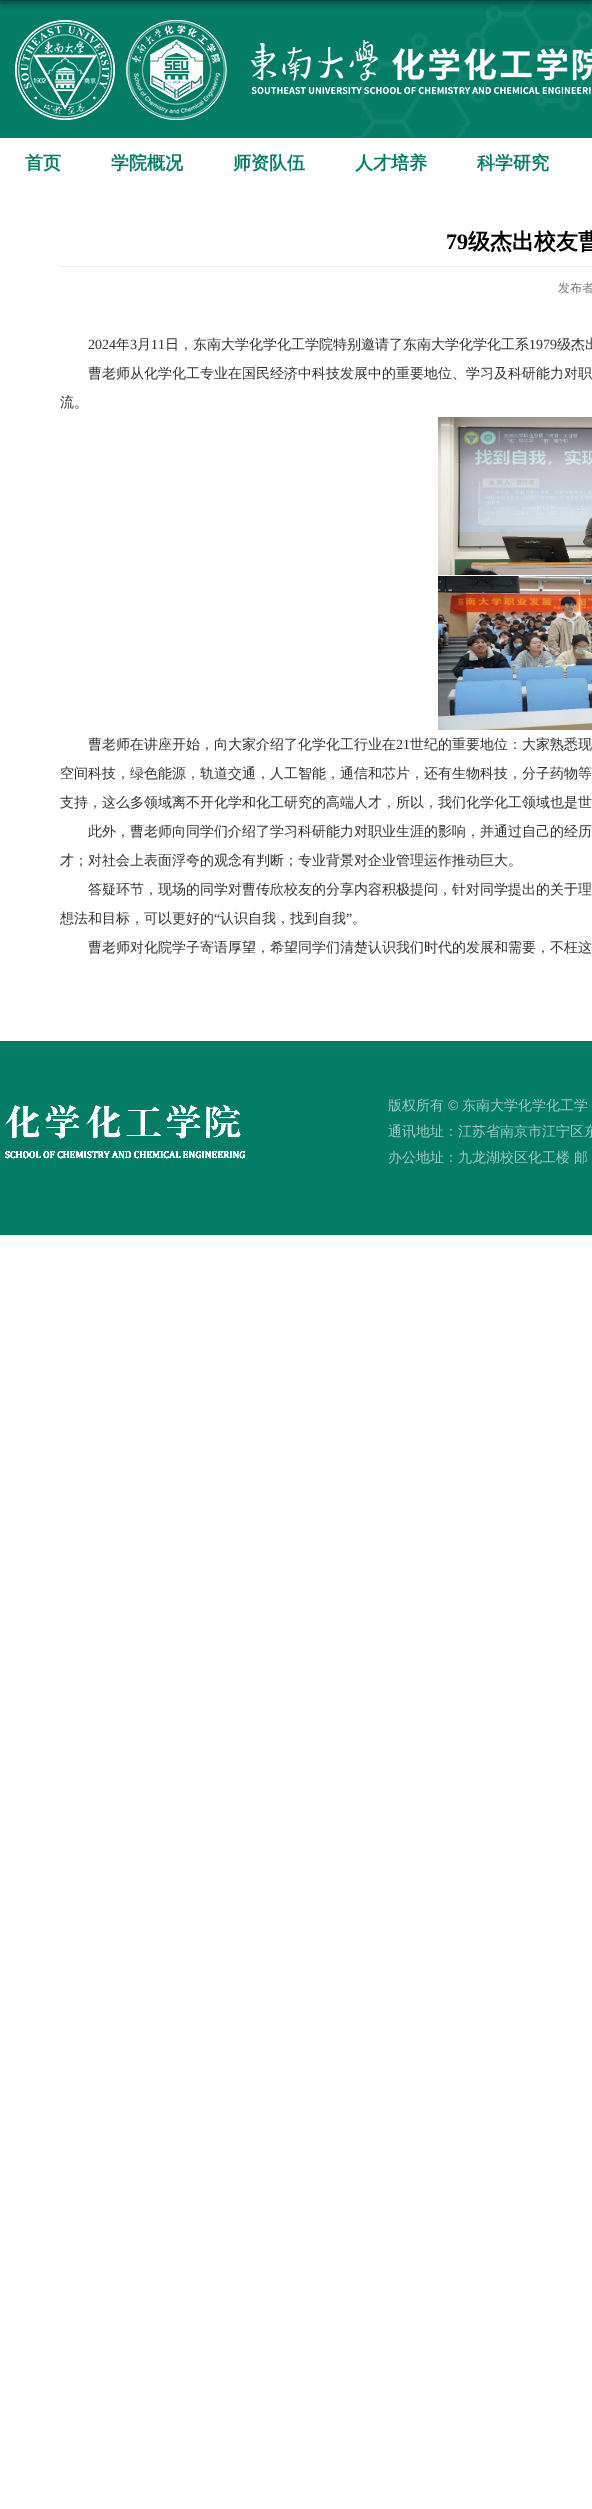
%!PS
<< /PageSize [592 2509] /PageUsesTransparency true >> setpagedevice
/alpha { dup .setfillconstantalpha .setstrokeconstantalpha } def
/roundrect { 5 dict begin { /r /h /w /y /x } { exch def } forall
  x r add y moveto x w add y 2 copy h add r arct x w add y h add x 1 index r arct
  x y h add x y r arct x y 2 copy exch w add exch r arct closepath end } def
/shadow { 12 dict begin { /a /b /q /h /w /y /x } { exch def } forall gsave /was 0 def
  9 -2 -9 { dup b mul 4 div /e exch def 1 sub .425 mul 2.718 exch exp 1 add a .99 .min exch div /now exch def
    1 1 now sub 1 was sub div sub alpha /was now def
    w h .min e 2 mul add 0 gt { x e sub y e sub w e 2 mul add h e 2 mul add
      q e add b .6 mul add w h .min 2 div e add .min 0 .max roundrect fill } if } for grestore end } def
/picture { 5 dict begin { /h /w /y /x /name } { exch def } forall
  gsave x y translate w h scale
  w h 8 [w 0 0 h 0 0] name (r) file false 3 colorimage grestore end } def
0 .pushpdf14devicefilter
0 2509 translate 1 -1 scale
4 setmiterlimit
1 setgray
0 0 592 2509 rectfill
0.02 0.486 0.4 setrgbcolor
0 0 592 138 rectfill
(img1.rgb) 345 0 247 138 picture
(img2.rgb) 15 20 577 100 picture
0 setgray
0 -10 592 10 0 5 0.8 shadow
/WenQuanYiZenHei-Bold [18 0 0 -18 0 0] selectfont
0.02 0.486 0.4 setrgbcolor
25 169 moveto (首页) show
111 169 moveto (学院概况) show
233 169 moveto (师资队伍) show
355 169 moveto (人才培养) show
477 169 moveto (科学研究) show
/LiberationSerif-Bold [22 0 0 -22 0 0] selectfont
0 setgray
446 249 moveto (79) show
/WenQuanYiZenHei-Bold [22 0 0 -22 0 0] selectfont
468 249 moveto (级杰出校友曹) show
0.925 setgray
60 266 532 1 rectfill
/WenQuanYiZenHei-Medium [12 0 0 -12 0 0] selectfont
0.471 setgray
558 292 moveto (发布者) show
/LiberationSerif-Regular [14 0 0 -14 0 0] selectfont
0.2 setgray
88 349 moveto (2024) show
/WenQuanYiZenHei-Medium [14 0 0 -14 0 0] selectfont
116 349 moveto (年) show
/LiberationSerif-Regular [14 0 0 -14 0 0] selectfont
130 349 moveto (3) show
/WenQuanYiZenHei-Medium [14 0 0 -14 0 0] selectfont
137 349 moveto (月) show
/LiberationSerif-Regular [14 0 0 -14 0 0] selectfont
151 349 moveto (11) show
/WenQuanYiZenHei-Medium [14 0 0 -14 0 0] selectfont
165 349 moveto (日，东南大学化学化工学院特别邀请了东南大学化学化工系) show
/LiberationSerif-Regular [14 0 0 -14 0 0] selectfont
529 349 moveto (1979) show
/WenQuanYiZenHei-Medium [14 0 0 -14 0 0] selectfont
557 349 moveto (级杰出) show
88 378 moveto (曹老师从化学化工专业在国民经济中科技发展中的重要地位、学习及科研能力对职) show
60 407 moveto (流。) show
(img3.rgb) 438 417 154 158 picture
(img4.rgb) 438 576 154 154 picture
88 749 moveto (曹老师在讲座开始，向大家介绍了化学化工行业在) show
/LiberationSerif-Regular [14 0 0 -14 0 0] selectfont
396 749 moveto (21) show
/WenQuanYiZenHei-Medium [14 0 0 -14 0 0] selectfont
410 749 moveto (世纪的重要地位：大家熟悉现) show
60 778 moveto (空间科技，绿色能源，轨道交通，人工智能，通信和芯片，还有生物科技，分子药物等) show
60 807 moveto (支持，这么多领域离不开化学和化工研究的高端人才，所以，我们化学化工领域也是世) show
88 836 moveto (此外，曹老师向同学们介绍了学习科研能力对职业生涯的影响，并通过自己的经历) show
60 865 moveto (才；对社会上表面浮夸的观念有判断；专业背景对企业管理运作推动巨大。) show
88 894 moveto (答疑环节，现场的同学对曹传欣校友的分享内容积极提问，针对同学提出的关于理) show
60 923 moveto (想法和目标，可以更好的) show
/LiberationSerif-Regular [14 0 0 -14 0 0] selectfont
214 923 moveto (“) show
/WenQuanYiZenHei-Medium [14 0 0 -14 0 0] selectfont
220 923 moveto (认识自我，找到自我) show
/LiberationSerif-Regular [14 0 0 -14 0 0] selectfont
346 923 moveto (”) show
/WenQuanYiZenHei-Medium [14 0 0 -14 0 0] selectfont
352 923 moveto (。) show
88 952 moveto (曹老师对化院学子寄语厚望，希望同学们清楚认识我们时代的发展和需要，不枉这) show
0.02 0.486 0.4 setrgbcolor
0 1041 592 194 rectfill
(img5.rgb) 5 1105 240 54 picture
0.608 0.796 0.761 setrgbcolor
388 1110 moveto (版权所有) show
/LiberationSans-Regular [14 0 0 -14 0 0] selectfont
448 1110 moveto (©) show
/WenQuanYiZenHei-Medium [14 0 0 -14 0 0] selectfont
462 1110 moveto (东南大学化学化工学) show
388 1136 moveto (通讯地址：江苏省南京市江宁区东) show
388 1162 moveto (办公地址：九龙湖校区化工楼) show
574 1162 moveto (邮) show
.poppdf14devicefilter showpage
